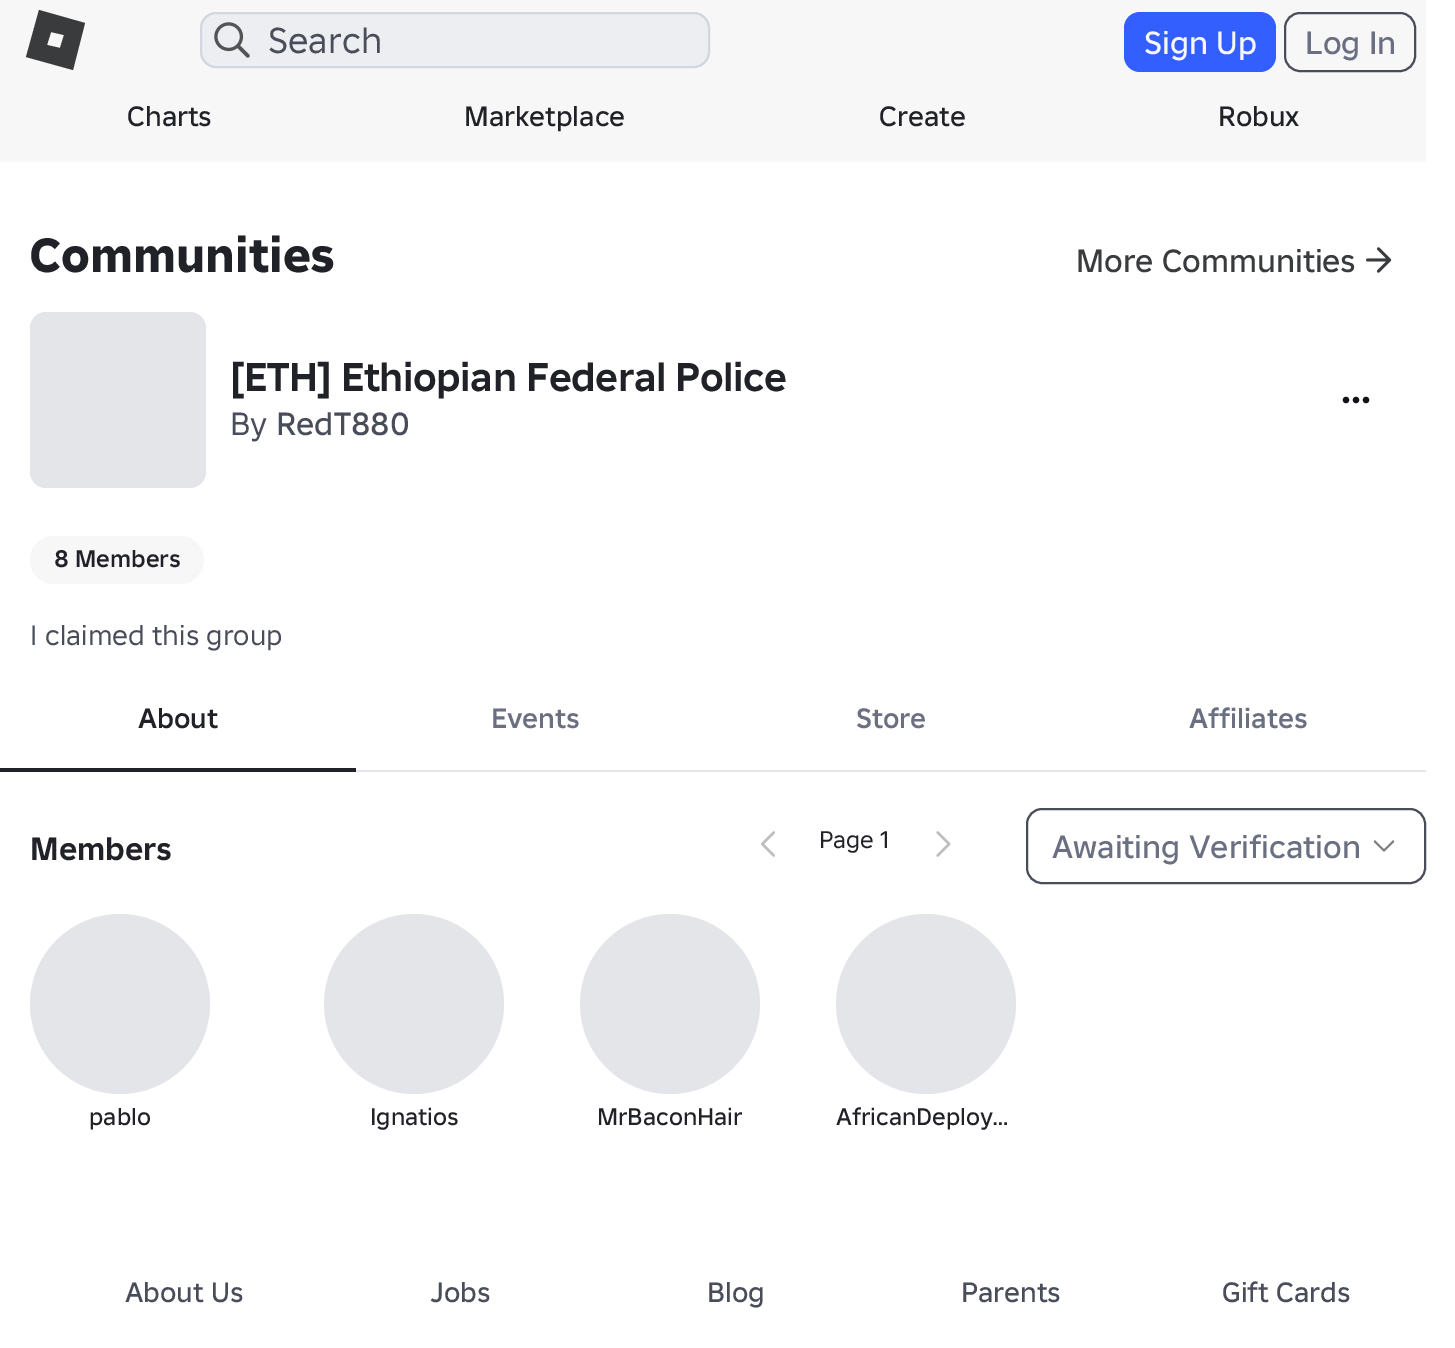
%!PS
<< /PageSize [1455 1348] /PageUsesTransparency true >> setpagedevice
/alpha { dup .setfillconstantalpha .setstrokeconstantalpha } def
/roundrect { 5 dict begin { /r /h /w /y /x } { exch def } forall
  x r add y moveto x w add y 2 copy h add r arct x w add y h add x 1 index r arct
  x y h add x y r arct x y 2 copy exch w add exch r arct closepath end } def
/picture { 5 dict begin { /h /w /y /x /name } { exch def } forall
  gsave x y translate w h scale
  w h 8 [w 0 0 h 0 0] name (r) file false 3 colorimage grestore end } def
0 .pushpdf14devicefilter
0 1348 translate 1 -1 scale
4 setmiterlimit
1 setgray
0 0 1455 1348 rectfill
0.969 0.969 0.973 setrgbcolor
0 0 1426 162 rectfill
0.224 0.231 0.239 setrgbcolor
newpath 39 10 moveto 26 57 lineto 73 70 lineto 85 23 lineto closepath 60 48 moveto 47 45 lineto 51 32 lineto 64 35 lineto closepath fill
1 setgray
200 12 510 56 16 roundrect fill
0.08 alpha
0.106 0.145 0.294 setrgbcolor
200 12 510 56 16 roundrect fill
0.12 alpha
2 setlinewidth
201 13 508 54 15 roundrect stroke
1 alpha
(img1.rgb) 214 22 36 36 picture
/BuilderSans-Regular [36 0 0 -36 0 0] selectfont
0.286 0.302 0.353 setrgbcolor
268 53 moveto (Search) show
0.2 0.373 1 setrgbcolor
1124 12 152 60 16 roundrect fill
/BuilderSans-Medium [32 0 0 -32 0 0] selectfont
0.969 0.969 0.973 setrgbcolor
1144 54 moveto (Sign Up) show
0.286 0.302 0.353 setrgbcolor
1285 13 130 58 15 roundrect stroke
0.416 0.435 0.506 setrgbcolor
1305 54 moveto (Log In) show
/BuilderSans-Medium [28 0 0 -28 0 0] selectfont
0.125 0.133 0.153 setrgbcolor
127 126 moveto (Charts) show
464 126 moveto (Marketplace) show
879 126 moveto (Create) show
1218 126 moveto (Robux) show
/BuilderSans-ExtraBold [48 0 0 -48 0 0] selectfont
30 272 moveto (Communities) show
/BuilderSans-Medium [32 0 0 -32 0 0] selectfont
0.224 0.231 0.239 setrgbcolor
1076 272 moveto (More Communities) show
(img2.rgb) 1366 247 26 26 picture
0.894 0.898 0.914 setrgbcolor
30 312 176 176 16 roundrect fill
/BuilderSans-Bold [40 0 0 -40 0 0] selectfont
0.125 0.133 0.153 setrgbcolor
230 391 moveto -0.4 0 ([ETH] Ethiopian Federal Police) ashow
/BuilderSans-Regular [32 0 0 -32 0 0] selectfont
0.286 0.302 0.353 setrgbcolor
230 435 moveto (By) show
/BuilderSans-Medium [32 0 0 -32 0 0] selectfont
276 435 moveto (RedT880) show
(img3.rgb) 1342 396 28 8 picture
0.969 0.969 0.973 setrgbcolor
30 536 174 48 24 roundrect fill
/BuilderSans-SemiBold [24 0 0 -24 0 0] selectfont
0.125 0.133 0.153 setrgbcolor
54 567 moveto (8 Members) show
/BuilderSans-Regular [28 0 0 -28 0 0] selectfont
0.286 0.302 0.353 setrgbcolor
30 645 moveto (I claimed this group) show
0.125 0.133 0.153 setrgbcolor
0 768 356 4 rectfill
/BuilderSans-SemiBold [28 0 0 -28 0 0] selectfont
138 728 moveto (About) show
0.894 0.898 0.914 setrgbcolor
356 770 1070 2 rectfill
0.416 0.435 0.506 setrgbcolor
491 728 moveto (Events) show
856 728 moveto (Store) show
1189 728 moveto (Affiliates) show
/BuilderSans-Bold [32 0 0 -32 0 0] selectfont
0.125 0.133 0.153 setrgbcolor
30 860 moveto (Members) show
(img4.rgb) 761 831 14 26 picture
/BuilderSans-Regular [24 0 0 -24 0 0] selectfont
819 848 moveto (Page 1) show
(img5.rgb) 936 831 15 26 picture
0.286 0.302 0.353 setrgbcolor
1027 809 398 74 15 roundrect stroke
/BuilderSans-Medium [32 0 0 -32 0 0] selectfont
0.416 0.435 0.506 setrgbcolor
1052 858 moveto (Awaiting Verification) show
(img6.rgb) 1373 840 22 12 picture
0.894 0.898 0.914 setrgbcolor
newpath 120 1004 90 0 360 arc closepath fill
/BuilderSans-Medium [24 0 0 -24 0 0] selectfont
0.125 0.133 0.153 setrgbcolor
89 1125 moveto (pablo) show
0.894 0.898 0.914 setrgbcolor
newpath 414 1004 90 0 360 arc closepath fill
0.125 0.133 0.153 setrgbcolor
370 1125 moveto (Ignatios) show
0.894 0.898 0.914 setrgbcolor
newpath 670 1004 90 0 360 arc closepath fill
gsave
598 1100 144 34 rectclip
0.125 0.133 0.153 setrgbcolor
597 1125 moveto (MrBaconHair) show
grestore
newpath 926 1004 90 0 360 arc closepath fill
0.125 0.133 0.153 setrgbcolor
836 1125 moveto (AfricanDeploy…) show
/BuilderSans-Medium [28 0 0 -28 0 0] selectfont
0.286 0.302 0.353 setrgbcolor
125 1302 moveto (About Us) show
430 1302 moveto (Jobs) show
707 1302 moveto (Blog) show
961 1302 moveto (Parents) show
1222 1302 moveto (Gift Cards) show
.poppdf14devicefilter showpage
